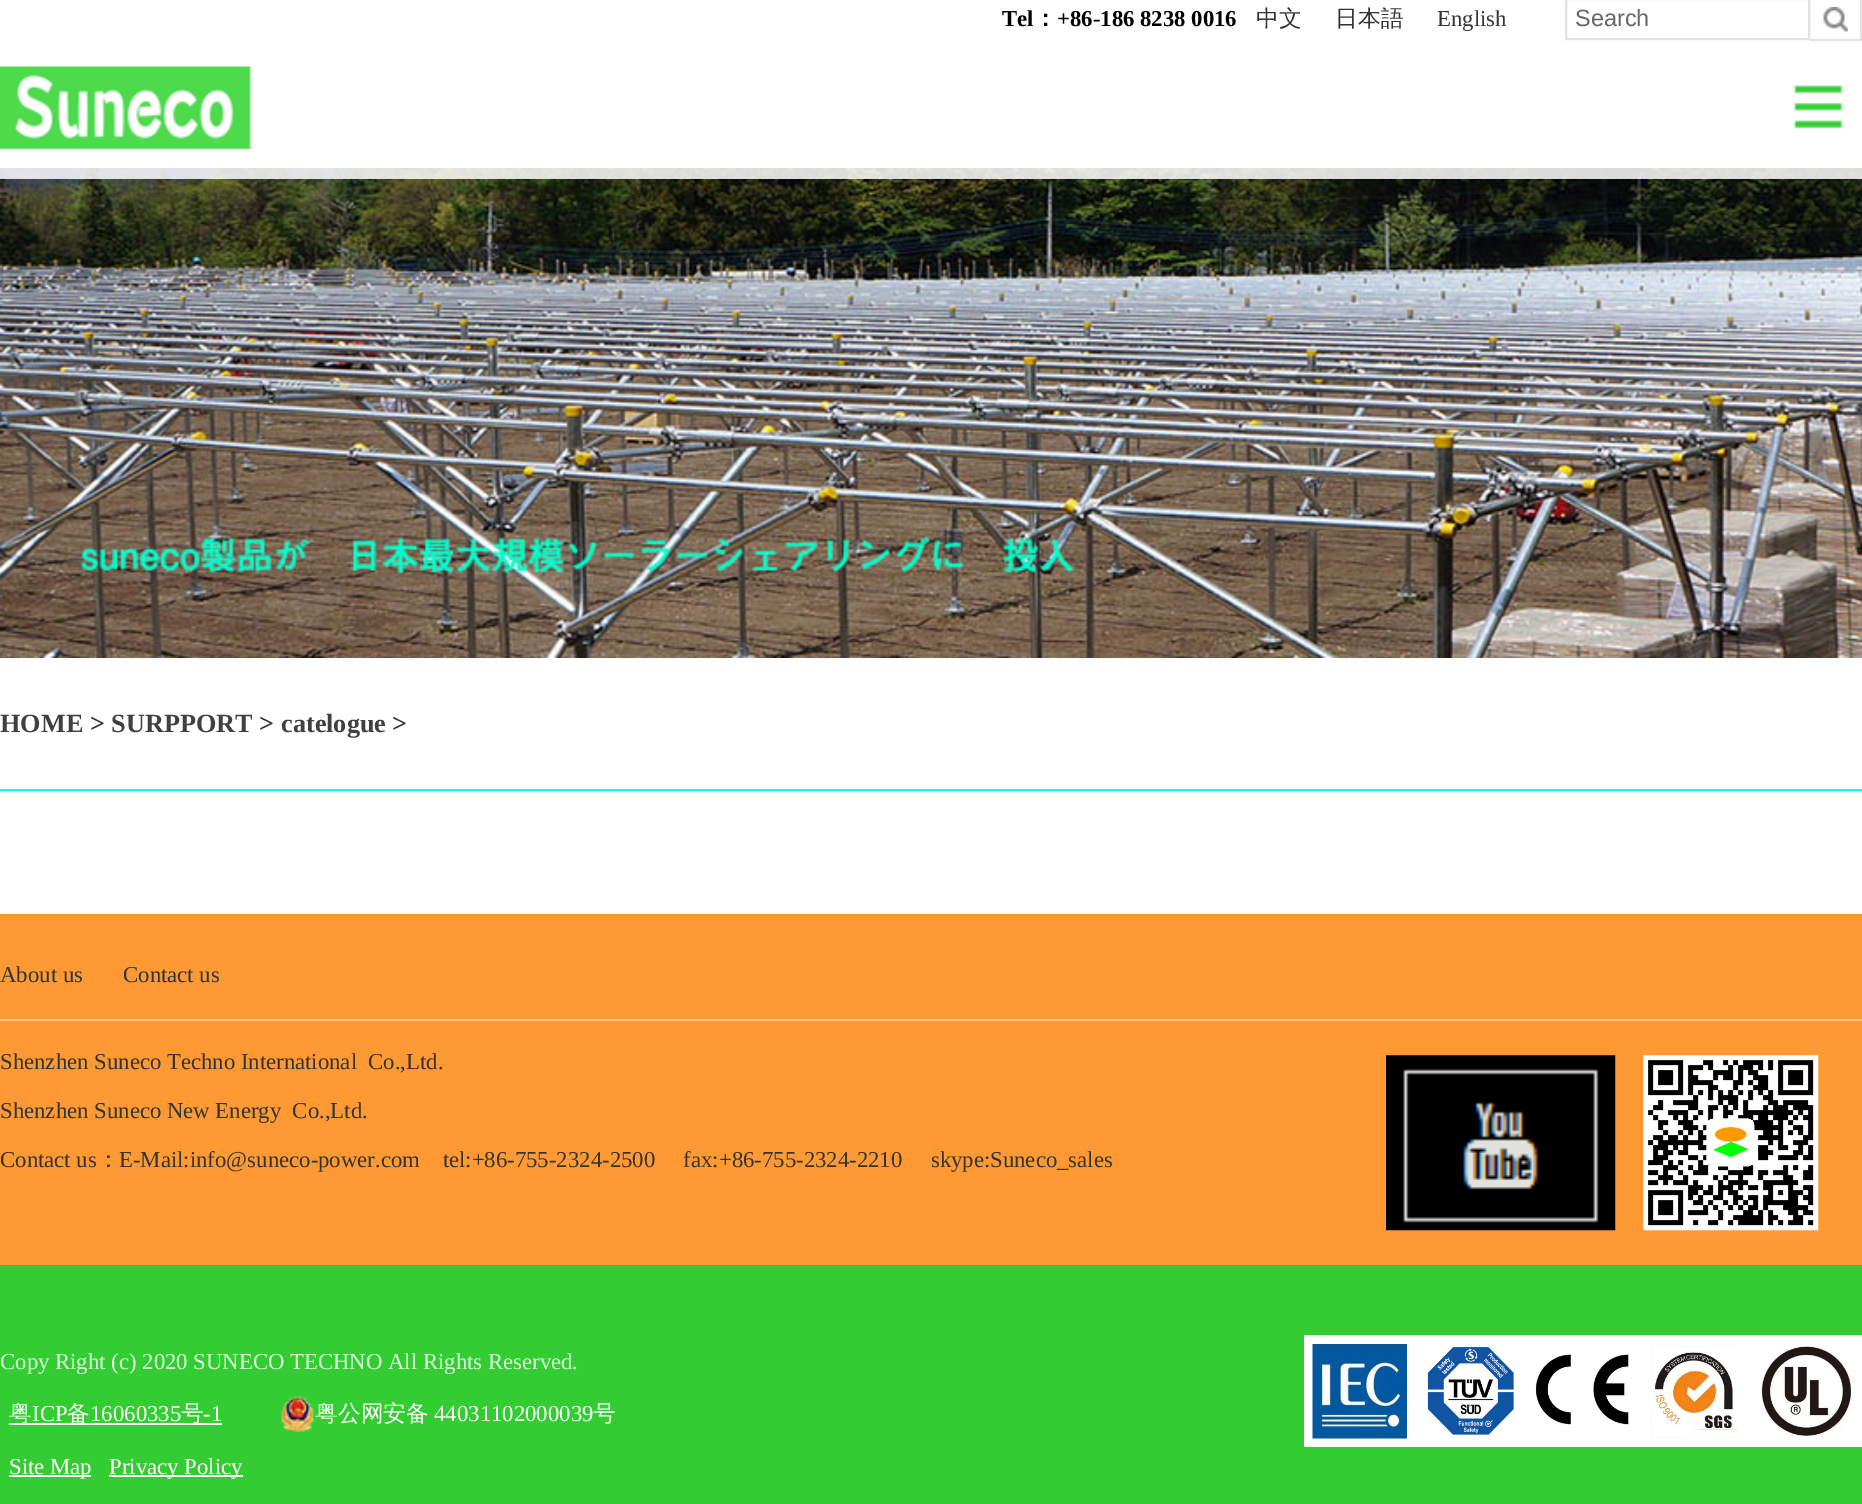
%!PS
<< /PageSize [1862 1504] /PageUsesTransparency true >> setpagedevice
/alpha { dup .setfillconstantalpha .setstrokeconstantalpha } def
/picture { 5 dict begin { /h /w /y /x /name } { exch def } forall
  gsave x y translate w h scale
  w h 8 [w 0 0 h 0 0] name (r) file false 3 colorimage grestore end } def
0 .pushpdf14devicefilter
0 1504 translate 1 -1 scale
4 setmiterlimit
1 setgray
0 0 1862 1504 rectfill
(img4.rgb) 0 168 1862 490 picture
0.85 alpha
0 168 1862 11 rectfill
/LiberationSerif-Bold [22.75 0 0 -22.75 0 0] selectfont
1 alpha
0 setgray
1002 26 moveto (Tel) show
/WenQuanYiZenHei-Bold [22.75 0 0 -22.75 0 0] selectfont
1034 26 moveto (：) show
/LiberationSerif-Bold [22.75 0 0 -22.75 0 0] selectfont
1057 26 moveto (+86-186 8238 0016) show
/WenQuanYiZenHei-Medium [22.75 0 0 -22.75 0 0] selectfont
0.2 setgray
1256 26 moveto (中文) show
1335 26 moveto (日本語) show
/LiberationSerif-Regular [22.75 0 0 -22.75 0 0] selectfont
1437 26 moveto (English) show
0.886 setgray
2 setlinewidth
1566 -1 243 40 rectstroke
/LiberationSans-Regular [23.5 0 0 -23.5 0 0] selectfont
0.4 setgray
1575 26 moveto (Search) show
(img1.rgb) 1823 7 25 25 picture
0.886 setgray
1860 0 2 40 rectfill
1810 39 52 2 rectfill
(img2.rgb) 0 66 251 83 picture
(img3.rgb) 1793 85 51 44 picture
/LiberationSerif-Bold [26.25 0 0 -26.25 0 0] selectfont
0.243 0.255 0.247 setrgbcolor
0 732 moveto (HOME) show
0.2 setgray
90 732 moveto (>) show
0.243 0.255 0.247 setrgbcolor
111 732 moveto (SURPPORT) show
0.2 setgray
259 732 moveto (>) show
0.243 0.255 0.247 setrgbcolor
281 732 moveto (catelogue) show
0.2 setgray
392 732 moveto (>) show
0 1 1 setrgbcolor
0 789 1862 2 rectfill
1 0.6 0.2 setrgbcolor
0 914 1862 351 rectfill
0.984 0.769 0.553 setrgbcolor
0 1019 1862 2 rectfill
/LiberationSerif-Regular [22.75 0 0 -22.75 0 0] selectfont
0.2 setgray
0 982 moveto (About us) show
123 982 moveto (Contact us) show
0 1069 moveto (Shenzhen Suneco Techno International  Co.,Ltd.) show
0 1118 moveto (Shenzhen Suneco New Energy  Co.,Ltd.) show
0 1167 moveto (Contact us) show
/WenQuanYiZenHei-Medium [22.75 0 0 -22.75 0 0] selectfont
97 1167 moveto (：) show
/LiberationSerif-Regular [22.75 0 0 -22.75 0 0] selectfont
119 1167 moveto (E-Mail:info@suneco-power.com    tel:+86-755-2324-2500     fax:+86-755-2324-2210     skype:Suneco_sales) show
(img5.rgb) 1386 1055 230 176 picture
(img6.rgb) 1643 1055 176 176 picture
0.2 0.8 0.2 setrgbcolor
0 1265 1862 239 rectfill
0.863 0.976 0.863 setrgbcolor
0 1369 moveto (Copy Right \(c\) 2020 SUNECO TECHNO All Rights Reserved.) show
1 setgray
9 1423 213 2 rectfill
/WenQuanYiZenHei-Medium [22.75 0 0 -22.75 0 0] selectfont
9 1421 moveto (粤) show
/LiberationSerif-Regular [22.75 0 0 -22.75 0 0] selectfont
32 1421 moveto (ICP) show
/WenQuanYiZenHei-Medium [22.75 0 0 -22.75 0 0] selectfont
67 1421 moveto (备) show
/LiberationSerif-Regular [22.75 0 0 -22.75 0 0] selectfont
90 1421 moveto (16060335) show
/WenQuanYiZenHei-Medium [22.75 0 0 -22.75 0 0] selectfont
181 1421 moveto (号) show
/LiberationSerif-Regular [22.75 0 0 -22.75 0 0] selectfont
203 1421 moveto (-1) show
(img7.rgb) 281 1396 33 36 picture
/WenQuanYiZenHei-Medium [22.75 0 0 -22.75 0 0] selectfont
315 1421 moveto (粤公网安备) show
/LiberationSerif-Regular [22.75 0 0 -22.75 0 0] selectfont
434 1421 moveto (44031102000039) show
/WenQuanYiZenHei-Medium [22.75 0 0 -22.75 0 0] selectfont
593 1421 moveto (号) show
9 1475 82 2 rectfill
/LiberationSerif-Regular [22.75 0 0 -22.75 0 0] selectfont
9 1474 moveto (Site Map) show
109 1475 134 2 rectfill
109 1474 moveto (Privacy Policy) show
1304 1335 558 112 rectfill
(img8.rgb) 1312 1344 95 95 picture
(img9.rgb) 1427 1347 87 88 picture
(img10.rgb) 1535 1354 94 71 picture
(img11.rgb) 1650 1345 88 94 picture
(img12.rgb) 1761 1346 92 91 picture
.poppdf14devicefilter showpage
